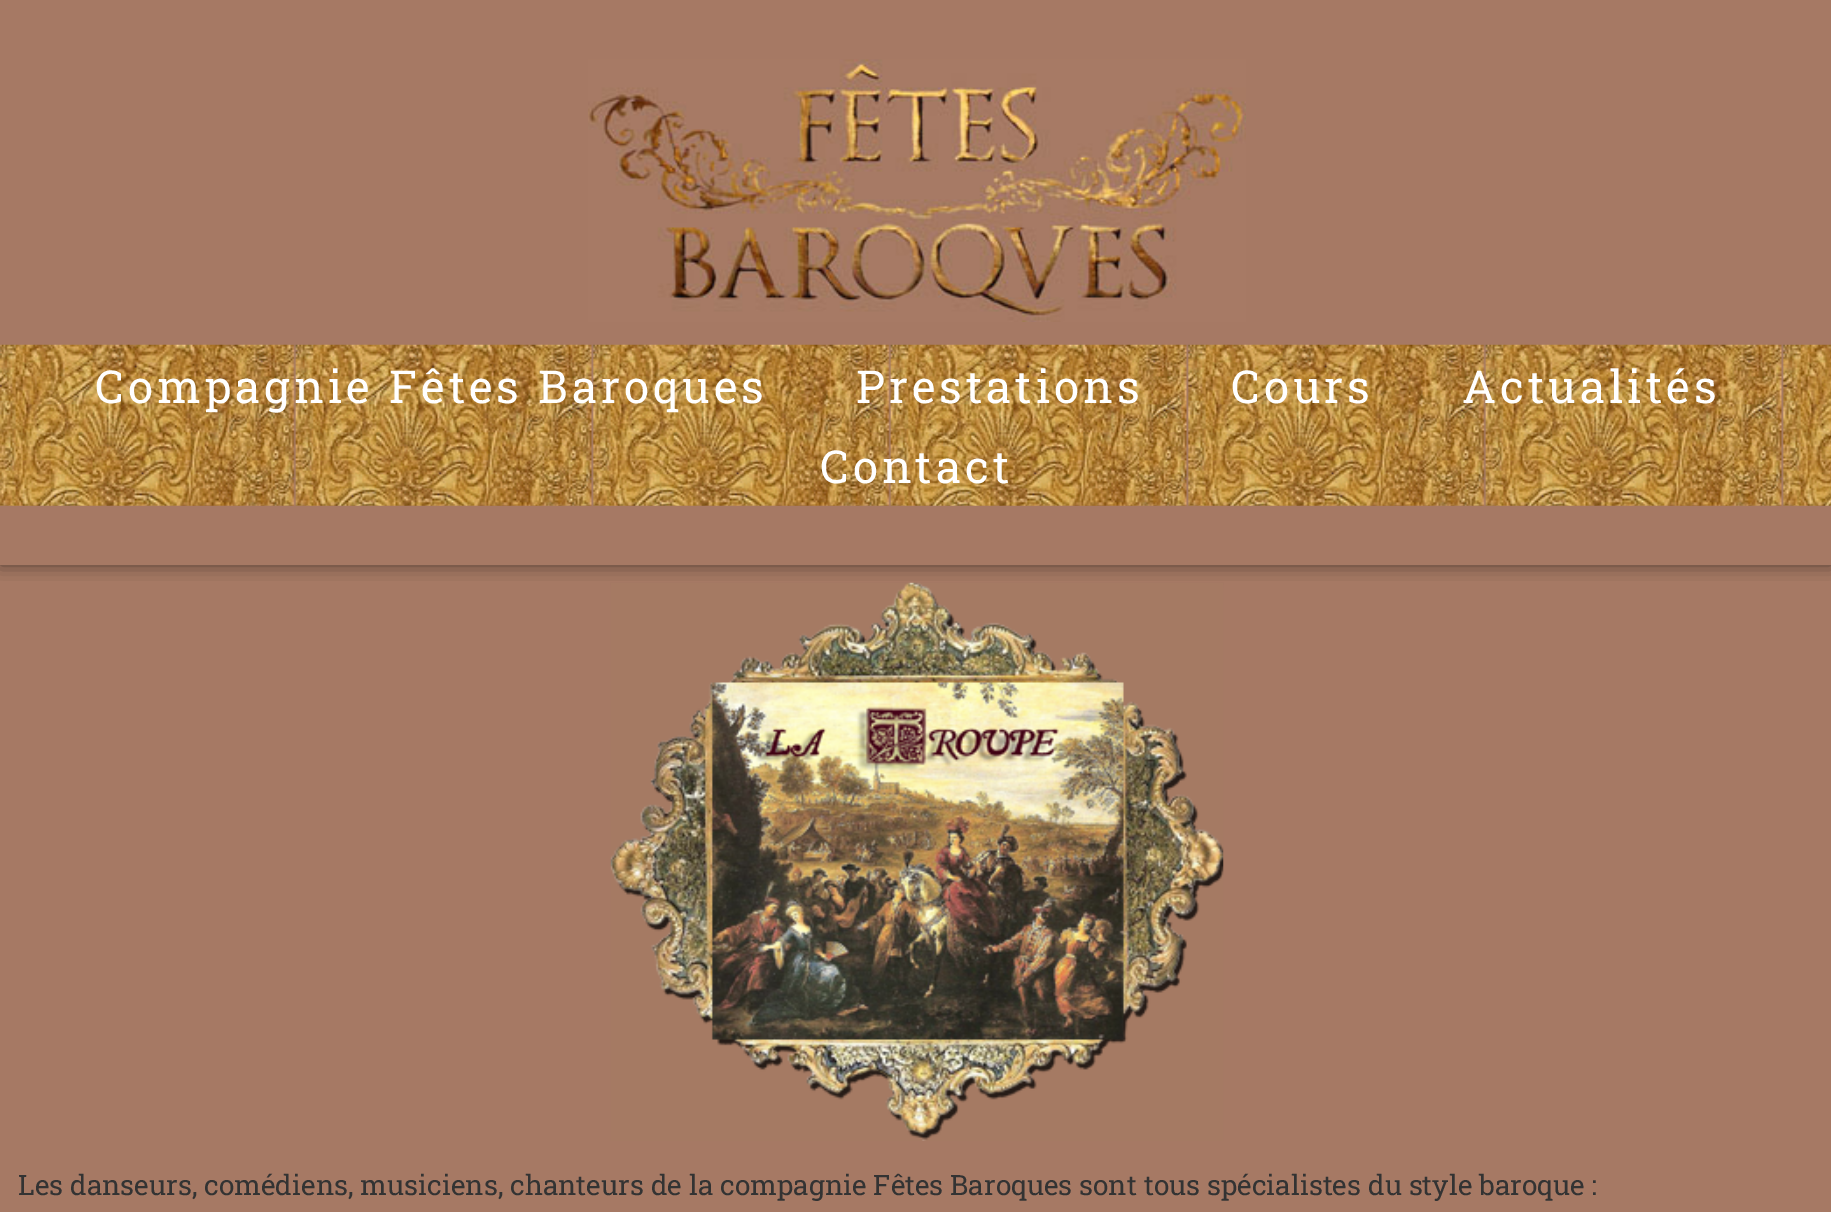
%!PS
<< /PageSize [1831 1212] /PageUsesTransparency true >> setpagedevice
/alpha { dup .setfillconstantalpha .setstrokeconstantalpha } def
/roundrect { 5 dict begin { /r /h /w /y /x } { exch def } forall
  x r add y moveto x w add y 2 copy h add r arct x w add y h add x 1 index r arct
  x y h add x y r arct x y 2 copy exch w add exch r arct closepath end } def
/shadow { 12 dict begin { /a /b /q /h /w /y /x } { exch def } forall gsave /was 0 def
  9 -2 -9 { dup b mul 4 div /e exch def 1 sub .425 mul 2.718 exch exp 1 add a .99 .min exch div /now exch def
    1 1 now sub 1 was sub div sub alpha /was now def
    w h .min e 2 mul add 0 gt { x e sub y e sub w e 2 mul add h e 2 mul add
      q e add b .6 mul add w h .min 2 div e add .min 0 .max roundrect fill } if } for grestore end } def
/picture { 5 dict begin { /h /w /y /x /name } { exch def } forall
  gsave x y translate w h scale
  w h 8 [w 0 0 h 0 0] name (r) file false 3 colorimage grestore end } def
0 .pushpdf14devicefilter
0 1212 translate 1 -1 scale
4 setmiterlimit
0.651 0.475 0.392 setrgbcolor
0 0 1831 1212 rectfill
gsave
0 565 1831 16 rectclip
0 setgray
0 0 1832 565 0 9 0.5 shadow
grestore
(img1.rgb) 588 59 658 263 picture
(img2.rgb) 0 344 1831 162 picture
/RobotoSlab-Regular [45.5 0 0 -45.5 0 0] selectfont
1 setgray
95 403 moveto 4 0 (Compagnie Fêtes Baroques) ashow
856 403 moveto 4 0 (Prestations) ashow
1231 403 moveto 4 0 (Cours) ashow
1462 403 moveto 4 0 (Actualités) ashow
820 483 moveto 4 0 (Contact) ashow
(img3.rgb) 610 582 614 559 picture
/RobotoSlab-Regular [28 0 0 -28 0 0] selectfont
0.2 setgray
18 1195 moveto (Les danseurs, comédiens, musiciens, chanteurs de la compagnie Fêtes Baroques sont tous spécialistes du style baroque :) show
.poppdf14devicefilter showpage
